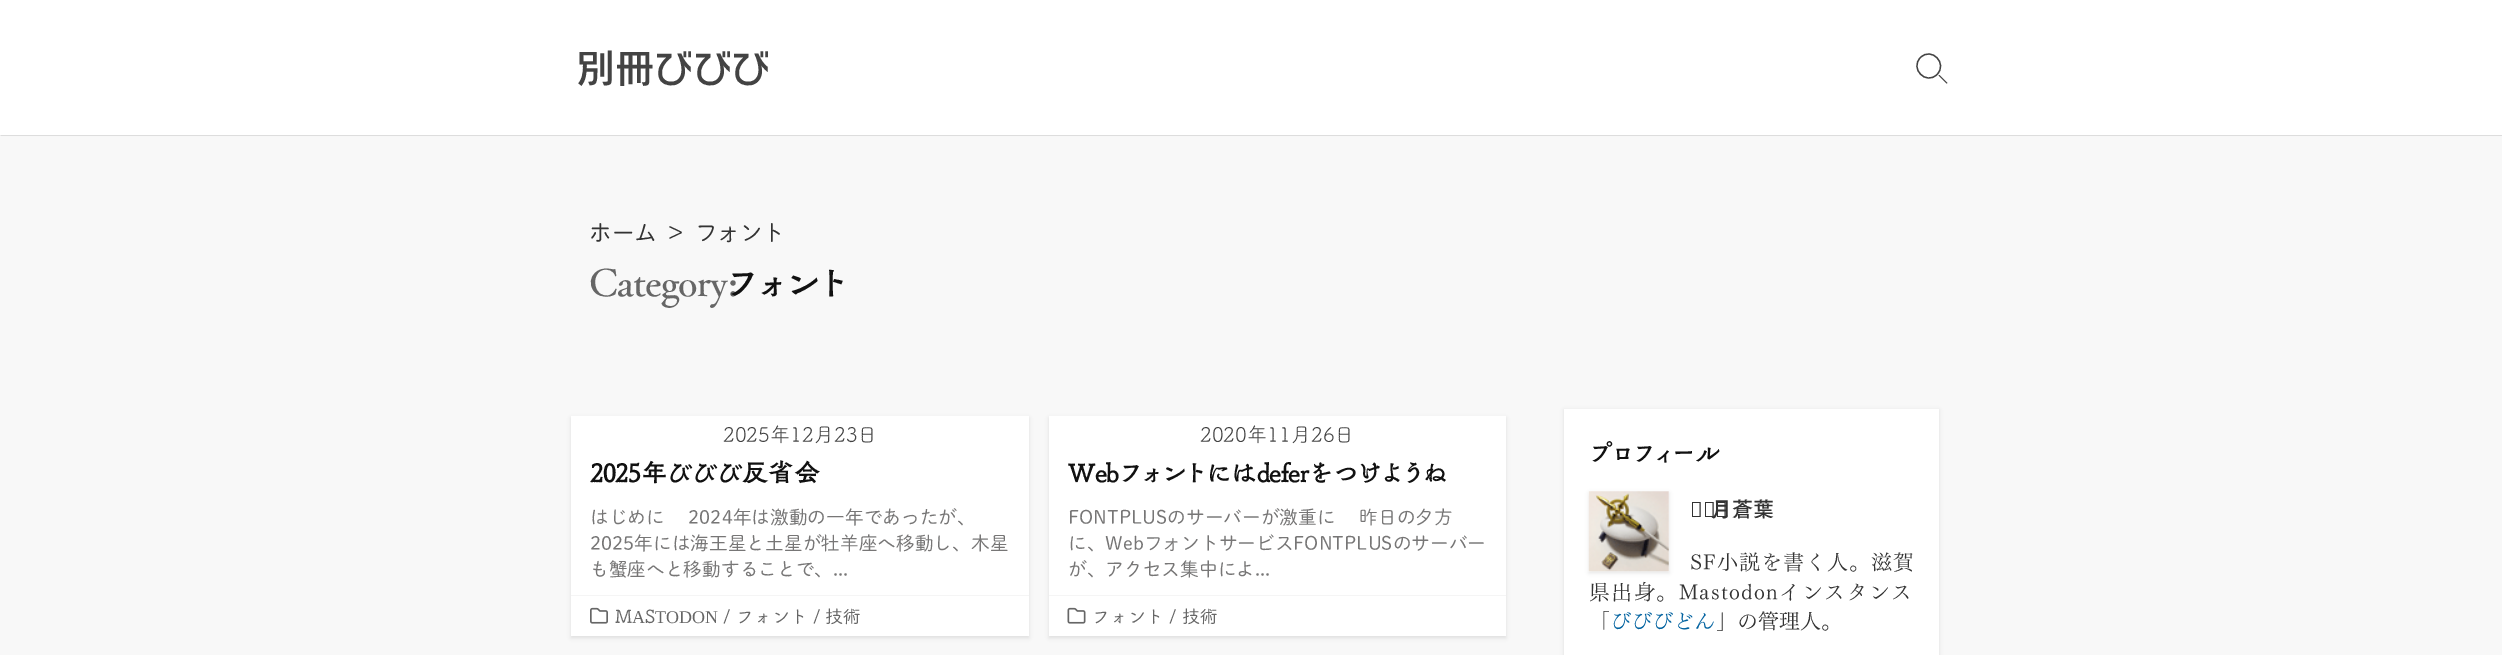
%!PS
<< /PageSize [2502 655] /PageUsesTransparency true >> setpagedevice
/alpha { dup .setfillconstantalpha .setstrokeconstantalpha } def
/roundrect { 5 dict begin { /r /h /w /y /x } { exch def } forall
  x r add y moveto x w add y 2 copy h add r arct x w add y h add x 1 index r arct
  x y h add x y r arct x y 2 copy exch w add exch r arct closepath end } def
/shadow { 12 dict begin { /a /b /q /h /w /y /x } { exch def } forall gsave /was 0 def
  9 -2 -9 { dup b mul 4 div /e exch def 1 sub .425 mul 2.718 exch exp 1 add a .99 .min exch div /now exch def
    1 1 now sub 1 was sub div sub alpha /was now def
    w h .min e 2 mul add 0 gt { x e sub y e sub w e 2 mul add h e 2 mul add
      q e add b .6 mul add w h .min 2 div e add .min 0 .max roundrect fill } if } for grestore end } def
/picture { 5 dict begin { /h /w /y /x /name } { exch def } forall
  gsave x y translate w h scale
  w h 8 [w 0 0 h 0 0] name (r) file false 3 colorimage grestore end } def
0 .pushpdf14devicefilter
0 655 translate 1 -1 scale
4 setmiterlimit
0.973 setgray
0 0 2502 655 rectfill
0 setgray
1 0 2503 135 0 0.5 0.4 shadow
1 setgray
0 0 2502 135 rectfill
/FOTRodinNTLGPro-SemiBold [39.5 0 0 -39.5 0 0] selectfont
0.263 setgray
576 83 moveto -1 0 (別冊びびび) ashow
0.267 setgray
1.3 setlinewidth
newpath 1920.5 57.5 moveto 1931.5 46.5 1948 63.5 1937 74.5 curveto 1926 85.5 1909.5 68.5 1920.5 57.5 curveto closepath stroke
newpath 1938.5 75.5 moveto 1939.5 75 lineto 1947.5 83 lineto 1946.5 83.5 lineto closepath fill
/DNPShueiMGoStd-Regular [22.5 0 0 -22.5 0 0] selectfont
0.2 setgray
589 241 moveto (ホーム) show
668 241 moveto (>  フォント) show
/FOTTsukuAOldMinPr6-Medium [37.5 0 0 -37.5 0 0] selectfont
0.4 setgray
589 296 moveto -1.1 0 (Category:) ashow
/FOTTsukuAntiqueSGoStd-Bold [37.5 0 0 -37.5 0 0] selectfont
0.067 setgray
726 296 moveto -1.1 0 (フォント) ashow
0 setgray
571 418 458 220 0 2 0.1 shadow
1 setgray
571 416 458 220 rectfill
0.961 setgray
newpath 571 418 moveto 571 596 lineto 1029 596 lineto 1029 418 lineto 1029 595 lineto 571 595 lineto closepath fill
/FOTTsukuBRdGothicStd-Regular [20.25 0 0 -20.25 0 0] selectfont
0.263 setgray
723 442 moveto (2025年12月23日) show
/FOTTsukuAntiqueSGoStd-Bold [27 0 0 -27 0 0] selectfont
0.067 setgray
590 482 moveto -0.8 0 (2025年びびび反省会) ashow
/DNPShueiMGoStd-Regular [18.7 0 0 -18.7 0 0] selectfont
0.467 0.463 0.463 setrgbcolor
590 524 moveto (はじめに 　2024年は激動の一年であったが、) show
590 550 moveto (2025年には海王星と土星が牡羊座へ移動し、木星) show
590 576 moveto (も蟹座へと移動することで、...) show
(img1.rgb) 590 607 18 17 picture
/FOTTsukuBRdGothicStd-Medium [18 0 0 -18 0 0] selectfont
0.4 setgray
615 623 moveto (M) show
/LiberationSerif-Regular [18 0 0 -18 0 0] selectfont
632 623 moveto (A) show
/FOTTsukuBRdGothicStd-Medium [18 0 0 -18 0 0] selectfont
645 623 moveto (S) show
/LiberationSerif-Regular [18 0 0 -18 0 0] selectfont
655 623 moveto (TODON) show
/FOTTsukuBRdGothicStd-Medium [18 0 0 -18 0 0] selectfont
723 623 moveto (/) show
736 623 moveto (フォント) show
813 623 moveto (/) show
825 623 moveto (技術) show
0 setgray
1049 418 457 220 0 2 0.1 shadow
1 setgray
1049 416 457 220 rectfill
0.961 setgray
1049 595 457 1 rectfill
/FOTTsukuBRdGothicStd-Regular [20.25 0 0 -20.25 0 0] selectfont
0.263 setgray
1200 442 moveto (2020年11月26日) show
/FOTTsukuAntiqueSGoStd-Bold [27 0 0 -27 0 0] selectfont
0.067 setgray
1068 482 moveto -0.8 0 (Webフォントにはdeferをつけようね) ashow
/DNPShueiMGoStd-Regular [18.7 0 0 -18.7 0 0] selectfont
0.467 0.463 0.463 setrgbcolor
1068 524 moveto (FONTPLUSのサーバーが激重に 　昨日の夕方) show
1068 550 moveto (に、WebフォントサービスFONTPLUSのサーバー) show
1068 576 moveto (が、アクセス集中によ...) show
(img2.rgb) 1067 607 19 17 picture
/FOTTsukuBRdGothicStd-Medium [18 0 0 -18 0 0] selectfont
0.4 setgray
1092 623 moveto (フォント) show
1169 623 moveto (/) show
1182 623 moveto (技術) show
0 setgray
1564 410 375 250 0 2 0.1 shadow
1 setgray
1564 409 375 246 rectfill
/FOTTsukuAntiqueSGoStd-Bold [25.5 0 0 -25.5 0 0] selectfont
0.067 setgray
1589 462 moveto -0.75 0 (プロフィール) ashow
0 setgray
1589 493 80 80 0 2 0.1 shadow
(img3.rgb) 1588 491 81 81 picture
/NotoSans-Regular [21.1 0 0 -21.1 0 0] selectfont
0.2 setgray
1690 517 moveto (皆) show
/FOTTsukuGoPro-Bold [21.1 0 0 -21.1 0 0] selectfont
1711 517 moveto (月蒼葉) show
/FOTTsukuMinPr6-Regular [21.1 0 0 -21.1 0 0] selectfont
1690 570 moveto 0.9 0 (SF小説を書く人。滋賀) ashow
1589 600 moveto 1.3 0 (県出身。Mastodonインスタンス) ashow
1589 629 moveto (「) show
0 0.38 0.624 setrgbcolor
1610 629 moveto (びびびどん) show
0.2 setgray
1716 629 moveto (」の管理人。) show
.poppdf14devicefilter showpage
